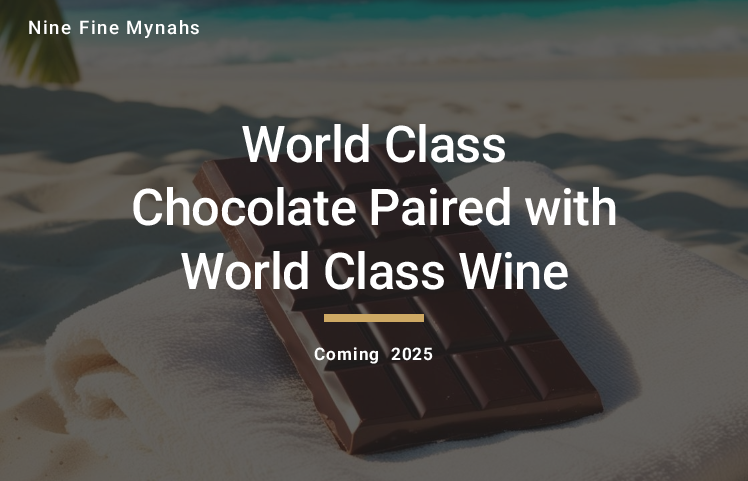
%!PS
<< /PageSize [748 481] >> setpagedevice
/picture { 5 dict begin { /h /w /y /x /name } { exch def } forall
  gsave x y translate w h scale
  w h 8 [w 0 0 h 0 0] name (r) file false 3 colorimage grestore end } def
0 481 translate 1 -1 scale
4 setmiterlimit
1 setgray
0 0 748 481 rectfill
(img1.rgb) 0 0 748 481 picture
/Roboto-Medium [18.75 0 0 -18.75 0 0] selectfont
28 34 moveto 1.5 0 (Nine Fine Mynahs) ashow
/Roboto-Medium [50.75 0 0 -50.75 0 0] selectfont
241 162 moveto -0.5 0 (World Class) ashow
131 225 moveto -0.5 0 (Chocolate Paired with) ashow
180 289 moveto -0.5 0 (World Class Wine) ashow
0.808 0.663 0.392 setrgbcolor
324 314 100 8 rectfill
/Roboto-Bold [17.25 0 0 -17.25 0 0] selectfont
1 setgray
314 360 moveto 1 0 (Coming  2025) ashow
showpage
